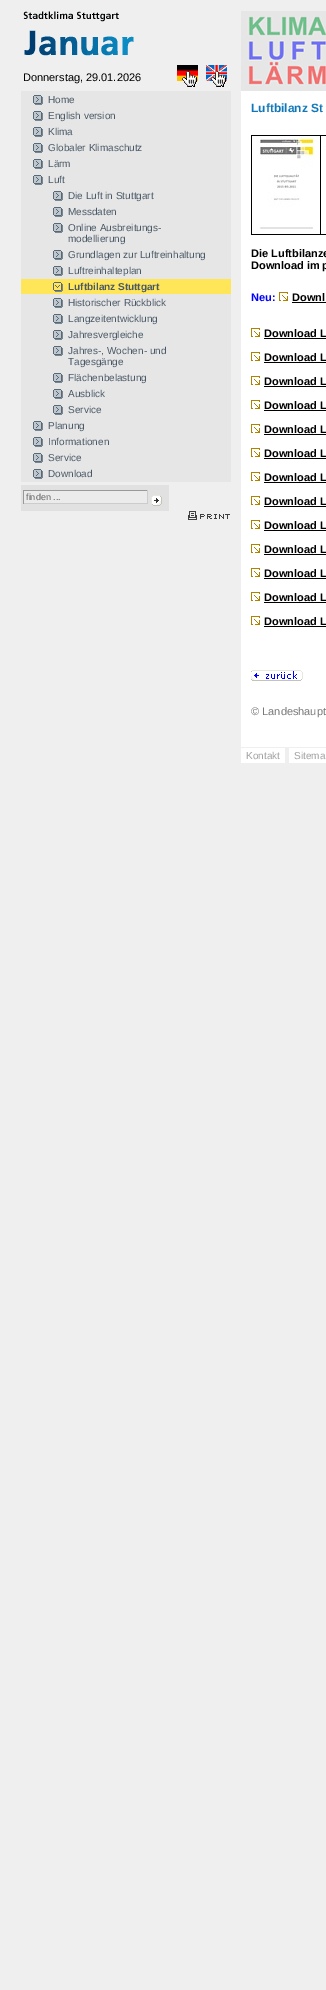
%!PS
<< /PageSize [326 1990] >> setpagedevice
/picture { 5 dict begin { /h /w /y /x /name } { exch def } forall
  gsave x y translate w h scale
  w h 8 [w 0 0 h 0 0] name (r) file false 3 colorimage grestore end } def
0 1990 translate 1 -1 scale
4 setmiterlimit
0.937 setgray
0 0 326 1990 rectfill
(img1.rgb) 23 11 111 45 picture
/LiberationSans-Regular [11 0 0 -11 0 0] selectfont
0 setgray
23 81 moveto (Donnerstag, 29.01.2026) show
(img2.rgb) 177 65 21 22 picture
(img3.rgb) 206 65 21 22 picture
(img4.rgb) 241 11 85 80 picture
0.902 setgray
21 91 210 188 rectfill
(img5.rgb) 33 95 10 10 picture
/LiberationSans-Regular [10 0 0 -10 0 0] selectfont
0.29 0.349 0.4 setrgbcolor
48 103 moveto (Home) show
(img5.rgb) 33 111 10 10 picture
48 119 moveto (English version) show
(img5.rgb) 33 127 10 10 picture
48 135 moveto (Klima) show
(img5.rgb) 33 143 10 10 picture
48 151 moveto (Globaler Klimaschutz) show
(img5.rgb) 33 159 10 10 picture
48 167 moveto (Lärm) show
(img5.rgb) 33 175 10 10 picture
48 183 moveto (Luft) show
(img5.rgb) 53 191 10 10 picture
68 199 moveto (Die Luft in Stuttgart) show
(img5.rgb) 53 207 10 10 picture
68 215 moveto (Messdaten) show
(img5.rgb) 53 223 10 10 picture
68 231 moveto (Online Ausbreitungs-) show
68 242 moveto (modellierung) show
(img5.rgb) 53 250 10 10 picture
68 258 moveto (Grundlagen zur Luftreinhaltung) show
(img5.rgb) 53 266 10 10 picture
68 274 moveto (Luftreinhalteplan) show
1 0.898 0.345 setrgbcolor
21 279 210 15 rectfill
(img6.rgb) 53 282 10 10 picture
/LiberationSans-Bold [10 0 0 -10 0 0] selectfont
0.29 0.349 0.4 setrgbcolor
68 290 moveto (Luftbilanz Stuttgart) show
0.902 setgray
21 294 210 188 rectfill
(img5.rgb) 53 298 10 10 picture
/LiberationSans-Regular [10 0 0 -10 0 0] selectfont
0.29 0.349 0.4 setrgbcolor
68 306 moveto (Historischer Rückblick) show
(img5.rgb) 53 314 10 10 picture
68 322 moveto (Langzeitentwicklung) show
(img5.rgb) 53 330 10 10 picture
68 338 moveto (Jahresvergleiche) show
(img5.rgb) 53 346 10 10 picture
68 354 moveto (Jahres-, Wochen- und) show
68 365 moveto (Tagesgänge) show
(img5.rgb) 53 373 10 10 picture
68 381 moveto (Flächenbelastung) show
(img5.rgb) 53 389 10 10 picture
68 397 moveto (Ausblick) show
(img5.rgb) 53 405 10 10 picture
68 413 moveto (Service) show
(img5.rgb) 33 421 10 10 picture
48 429 moveto (Planung) show
(img5.rgb) 33 437 10 10 picture
48 445 moveto (Informationen) show
(img5.rgb) 33 453 10 10 picture
48 461 moveto (Service) show
(img5.rgb) 33 469 10 10 picture
48 477 moveto (Download) show
0.882 setgray
21 485 148 26 rectfill
0.922 setgray
24 491 123 12 rectfill
0.6 setgray
23 490 125 1 rectfill
0.8 setgray
147 490 1 14 rectfill
23 503 125 1 rectfill
0.6 setgray
23 490 1 14 rectfill
/LiberationSans-Regular [9 0 0 -9 0 0] selectfont
0.4 setgray
26 500 moveto (finden ...) show
(img7.rgb) 151 495 11 11 picture
(img8.rgb) 188 511 42 9 picture
1 setgray
241 91 85 656 rectfill
/LiberationSans-Bold [12 0 0 -12 0 0] selectfont
0.063 0.471 0.729 setrgbcolor
251 112 moveto (Luftbilanz St) show
(img9.rgb) 251 135 75 100 picture
/LiberationSans-Bold [11 0 0 -11 0 0] selectfont
0 setgray
251 257 moveto (Die Luftbilanze) show
251 269 moveto (Download im p) show
0 0 1 setrgbcolor
251 301 moveto (Neu:) show
(img10.rgb) 279 292 9 9 picture
0 setgray
292 301 moveto (Downl) show
292 302 34 1 rectfill
(img10.rgb) 251 328 9 9 picture
264 337 moveto (Download L) show
264 338 62 1 rectfill
(img10.rgb) 251 352 9 9 picture
264 361 moveto (Download L) show
264 362 62 1 rectfill
(img10.rgb) 251 376 9 9 picture
264 385 moveto (Download L) show
264 386 62 1 rectfill
(img10.rgb) 251 400 9 9 picture
264 409 moveto (Download L) show
264 410 62 1 rectfill
(img10.rgb) 251 424 9 9 picture
264 433 moveto (Download L) show
264 434 62 1 rectfill
(img10.rgb) 251 448 9 9 picture
264 457 moveto (Download L) show
264 458 62 1 rectfill
(img10.rgb) 251 472 9 9 picture
264 481 moveto (Download L) show
264 482 62 1 rectfill
(img10.rgb) 251 496 9 9 picture
264 505 moveto (Download L) show
264 506 62 1 rectfill
(img10.rgb) 251 520 9 9 picture
264 529 moveto (Download L) show
264 530 62 1 rectfill
(img10.rgb) 251 544 9 9 picture
264 553 moveto (Download L) show
264 554 62 1 rectfill
(img10.rgb) 251 568 9 9 picture
264 577 moveto (Download L) show
264 578 62 1 rectfill
(img10.rgb) 251 592 9 9 picture
264 601 moveto (Download L) show
264 602 62 1 rectfill
(img10.rgb) 251 616 9 9 picture
264 625 moveto (Download L) show
264 626 62 1 rectfill
(img11.rgb) 251 670 52 11 picture
/LiberationSans-Regular [11 0 0 -11 0 0] selectfont
0.471 setgray
251 715 moveto (© Landeshaupt) show
1 setgray
241 748 44 15 rectfill
/LiberationSans-Regular [10 0 0 -10 0 0] selectfont
0.627 setgray
246 759 moveto (Kontakt) show
1 setgray
289 748 37 15 rectfill
0.627 setgray
294 759 moveto (Sitema) show
showpage
